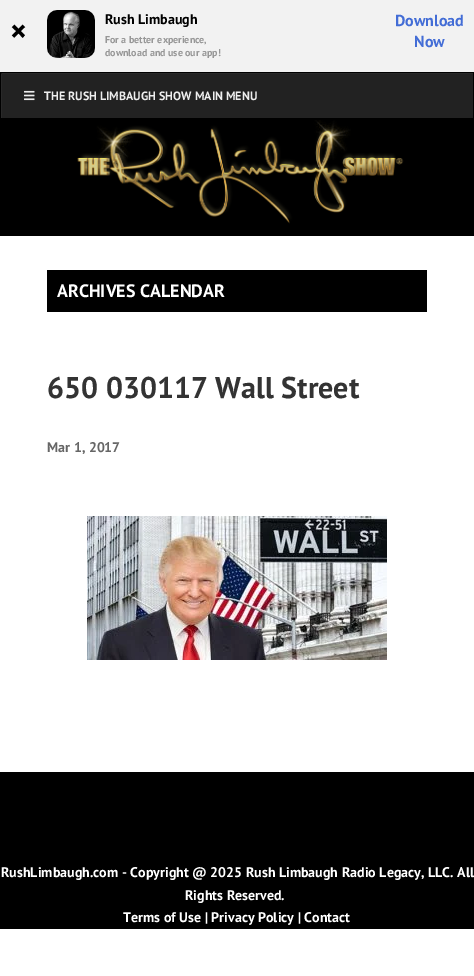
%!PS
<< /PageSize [474 976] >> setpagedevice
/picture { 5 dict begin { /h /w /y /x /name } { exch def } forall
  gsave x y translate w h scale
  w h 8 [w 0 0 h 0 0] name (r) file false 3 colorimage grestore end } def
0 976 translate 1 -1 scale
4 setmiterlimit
1 setgray
0 0 474 976 rectfill
0.949 setgray
0 0 474 72 rectfill
/PTSans-Bold [32 0 0 -32 0 0] selectfont
0 setgray
10 42 moveto (×) show
(img1.rgb) 47 10 48 48 picture
/PTSans-Bold [14 0 0 -14 0 0] selectfont
105 24 moveto (Rush Limbaugh) show
/PTSans-Bold [10 0 0 -10 0 0] selectfont
0.592 setgray
105 43 moveto (For a better experience,) show
105 56 moveto (download and use our app!) show
/PTSans-Bold [16 0 0 -16 0 0] selectfont
0.263 0.427 0.839 setrgbcolor
395 26 moveto (Download) show
414 47 moveto (Now) show
0.133 setgray
2 74 471 44 rectfill
gsave
1 73 472 45 rectclip
0.22 setgray
newpath -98 -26 moveto 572 -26 lineto 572 217 lineto -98 217 lineto closepath 2 74 moveto 474 74 lineto 474 119 lineto 2 119 lineto closepath eofill
grestore
0 setgray
0.5 72.5 473 46 rectstroke
(img2.rgb) 24 90 11 11 picture
/PTSans-Bold [12 0 0 -12 0 0] selectfont
0.933 setgray
44 100 moveto (THE RUSH LIMBAUGH SHOW MAIN MENU) show
0 setgray
0 119 474 117 rectfill
(img3.rgb) 77 120 327 104 picture
47 270 380 42 rectfill
/PTSans-Bold [18 0 0 -18 0 0] selectfont
1 setgray
57 297 moveto (ARCHIVES CALENDAR) show
/PTSans-Bold [30 0 0 -30 0 0] selectfont
0.2 setgray
47 398 moveto (650 030117 Wall Street) show
/PTSans-Bold [14 0 0 -14 0 0] selectfont
0.4 setgray
47 452 moveto (Mar 1, 2017) show
(img4.rgb) 87 516 300 144 picture
0 setgray
0 772 474 157 rectfill
1 setgray
1 877 moveto (RushLimbaugh.com - Copyright @ 2025 Rush Limbaugh Radio Legacy, LLC. All) show
185 900 moveto (Rights Reserved.) show
123 922 moveto (Terms of Use | Privacy Policy | Contact) show
showpage
